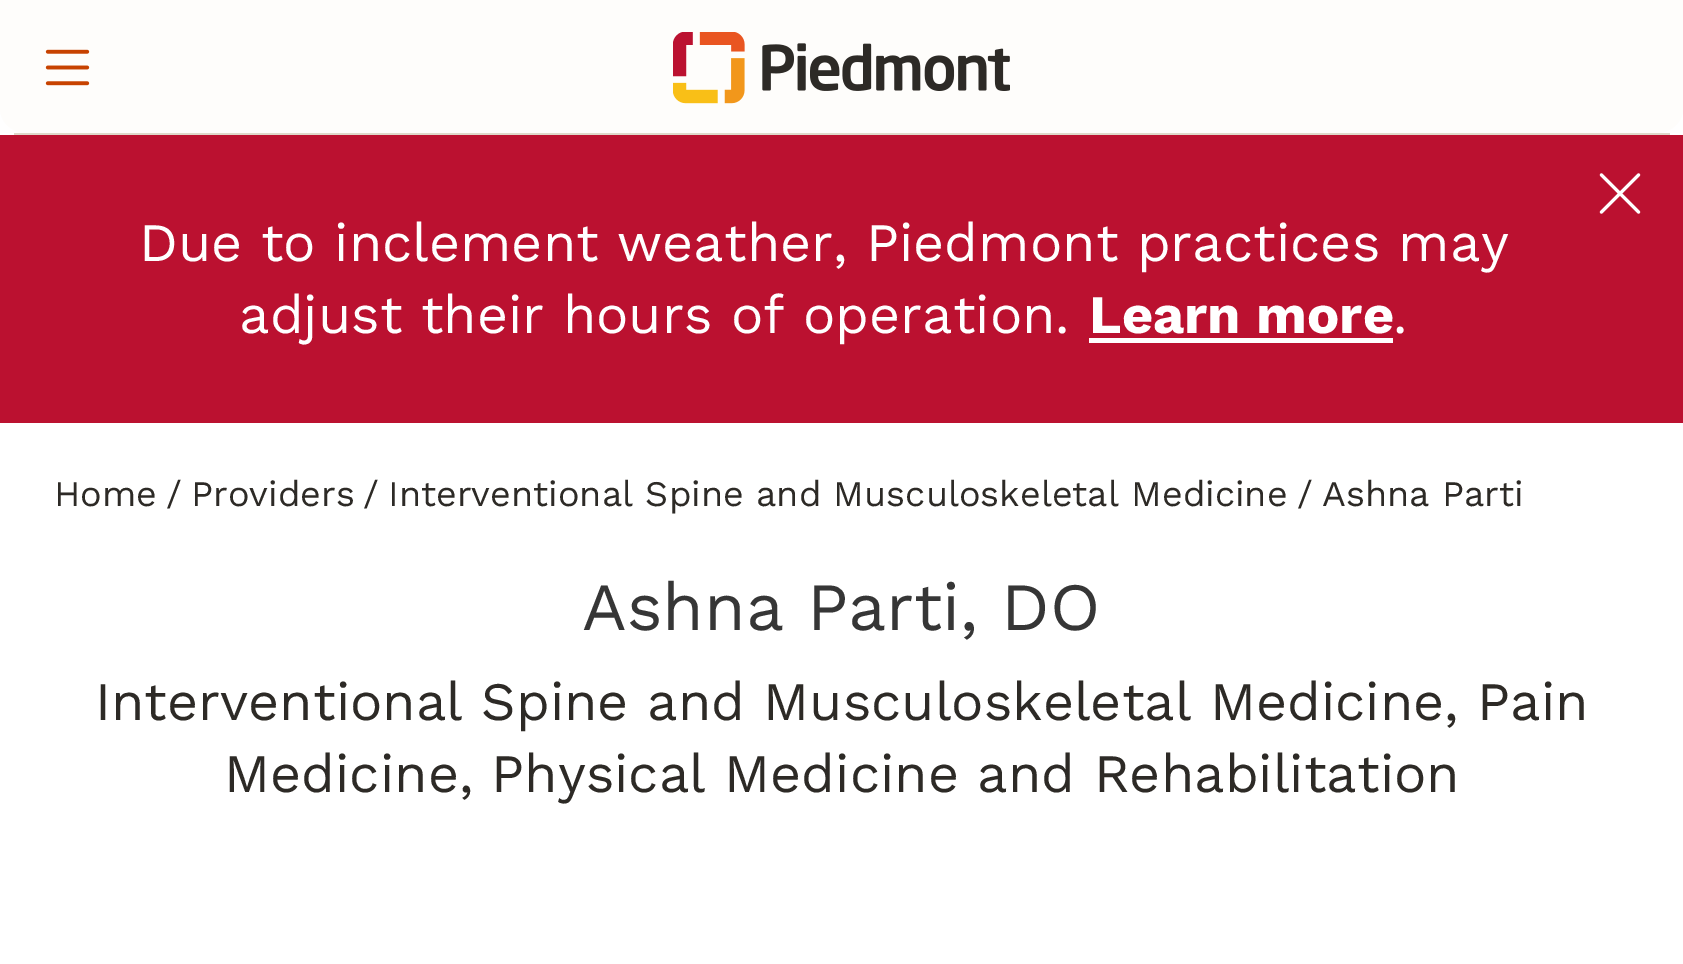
%!PS
<< /PageSize [1683 964] >> setpagedevice
/picture { 5 dict begin { /h /w /y /x /name } { exch def } forall
  gsave x y translate w h scale
  w h 8 [w 0 0 h 0 0] name (r) file false 3 colorimage grestore end } def
0 964 translate 1 -1 scale
4 setmiterlimit
1 setgray
0 0 1683 964 rectfill
0.996 0.992 0.984 setrgbcolor
newpath 0 0 moveto 1683 0 lineto 1683 108 lineto 1683 122 1671 133 1656 133 curveto 27 133 lineto 12 133 0 122 0 108 curveto closepath fill
0.871 0.843 0.788 setrgbcolor
14 133 1656 2 rectfill
(img1.rgb) 45 49 45 37 picture
(img2.rgb) 673 32 337 72 picture
0.733 0.067 0.188 setrgbcolor
0 135 1683 288 rectfill
(img3.rgb) 1599 173 42 41 picture
/WorkSans-Regular [54 0 0 -54 0 0] selectfont
1 setgray
139 261 moveto (Due to inclement weather, Piedmont practices may) show
239 333 moveto (adjust their hours of operation.) show
/WorkSans-Bold [54 0 0 -54 0 0] selectfont
1089 333 moveto (Learn more) show
1089 338 304 5 rectfill
/WorkSans-Regular [54 0 0 -54 0 0] selectfont
1393 333 moveto (.) show
/WorkSans-Regular [36 0 0 -36 0 0] selectfont
0.176 0.165 0.149 setrgbcolor
54 506 moveto (Home) show
166 506 moveto (/) show
191 506 moveto (Providers) show
363 506 moveto (/) show
388 506 moveto (Interventional Spine and Musculoskeletal Medicine) show
1297 506 moveto (/) show
1322 506 moveto (Ashna Parti) show
/WorkSans-Regular [67.5 0 0 -67.5 0 0] selectfont
0.212 setgray
582 630 moveto (Ashna Parti, DO) show
/WorkSans-Regular [54 0 0 -54 0 0] selectfont
0.176 0.165 0.149 setrgbcolor
95 720 moveto (Interventional Spine and Musculoskeletal Medicine, Pain) show
224 792 moveto (Medicine, Physical Medicine and Rehabilitation) show
showpage
